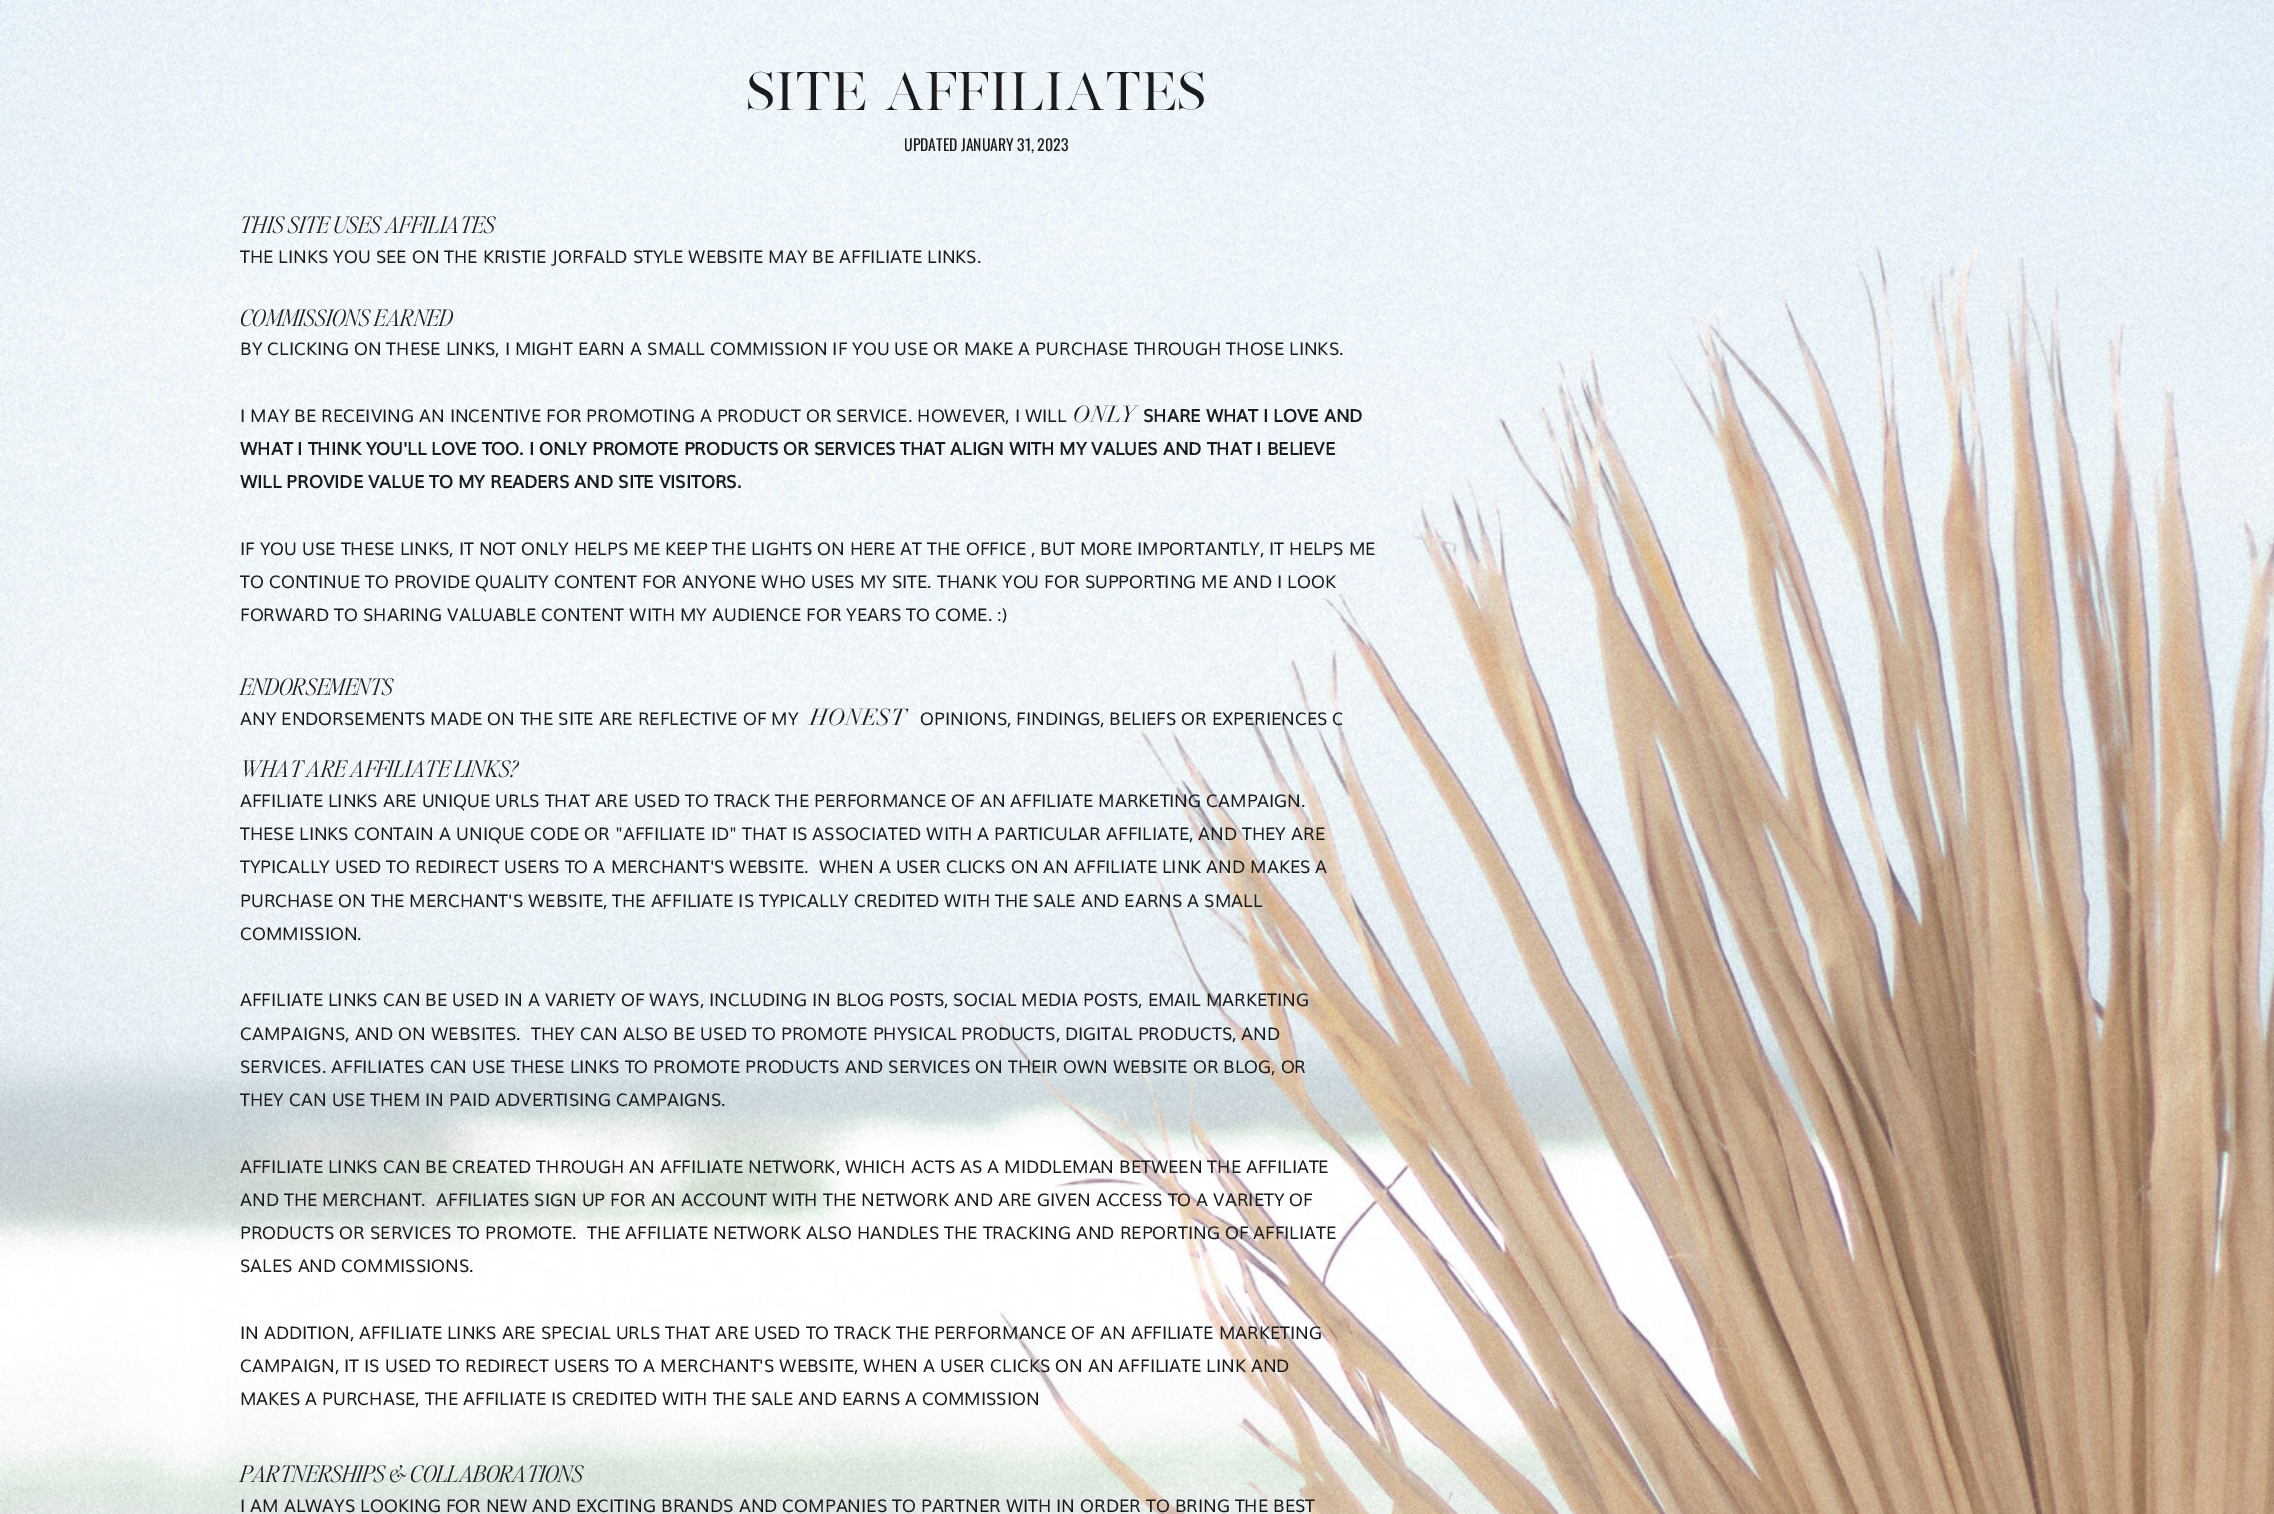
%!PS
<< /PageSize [2274 1514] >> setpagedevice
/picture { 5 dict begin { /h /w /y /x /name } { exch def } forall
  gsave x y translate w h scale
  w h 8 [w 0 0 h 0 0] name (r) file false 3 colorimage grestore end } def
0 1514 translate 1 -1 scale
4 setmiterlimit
1 setgray
0 0 2274 1514 rectfill
(img1.rgb) 0 0 2274 1514 picture
/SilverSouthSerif-Regular [47.25 0 0 -47.25 0 0] selectfont
0.102 0.106 0.114 setrgbcolor
746 110 moveto (SITE AFFILIATES) show
/Oswald-Regular [15.75 0 0 -15.75 0 0] selectfont
904 151 moveto (UPDATED JANUARY 31, 2023) show
/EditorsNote-LightItalic [22.75 0 0 -22.75 0 0] selectfont
240 233 moveto (THIS SITE USES AFFILIATES) show
/Muli-Regular [17.5 0 0 -17.5 0 0] selectfont
240 263 moveto (THE LINKS YOU SEE ON THE KRISTIE JORFALD STYLE WEBSITE MAY BE AFFILIATE LINKS.) show
/EditorsNote-LightItalic [22.75 0 0 -22.75 0 0] selectfont
240 326 moveto (COMMISSIONS EARNED) show
/Muli-Regular [17.5 0 0 -17.5 0 0] selectfont
240 355 moveto (BY CLICKING ON THESE LINKS, I MIGHT EARN A SMALL COMMISSION IF YOU USE OR MAKE A PURCHASE THROUGH THOSE LINKS.) show
240 422 moveto (I MAY BE RECEIVING AN INCENTIVE FOR PROMOTING A PRODUCT OR SERVICE. HOWEVER, I WILL) show
/Muli-Bold [17.5 0 0 -17.5 0 0] selectfont
1143 422 moveto (SHARE WHAT I LOVE AND) show
240 455 moveto (WHAT I THINK YOU'LL LOVE TOO. I ONLY PROMOTE PRODUCTS OR SERVICES THAT ALIGN WITH MY VALUES AND THAT I BELIEVE) show
240 488 moveto (WILL PROVIDE VALUE TO MY READERS AND SITE VISITORS.) show
/Muli-Regular [17.5 0 0 -17.5 0 0] selectfont
240 555 moveto (IF YOU USE THESE LINKS, IT NOT ONLY HELPS ME KEEP THE LIGHTS ON HERE AT THE OFFICE , BUT MORE IMPORTANTLY, IT HELPS ME) show
240 588 moveto (TO CONTINUE TO PROVIDE QUALITY CONTENT FOR ANYONE WHO USES MY SITE. THANK YOU FOR SUPPORTING ME AND I LOOK) show
240 621 moveto (FORWARD TO SHARING VALUABLE CONTENT WITH MY AUDIENCE FOR YEARS TO COME. :\)) show
/Didot-Italic [22.75 0 0 -22.75 0 0] selectfont
1073 422 moveto (ONLY) show
/EditorsNote-LightItalic [22.75 0 0 -22.75 0 0] selectfont
240 695 moveto (ENDORSEMENTS) show
gsave
240 700 1102 35 rectclip
/Muli-Regular [17.5 0 0 -17.5 0 0] selectfont
240 725 moveto (ANY ENDORSEMENTS MADE ON THE SITE ARE REFLECTIVE OF MY                        OPINIONS, FINDINGS, BELIEFS OR EXPERIENCES O) show
grestore
/Didot-Italic [22.75 0 0 -22.75 0 0] selectfont
810 725 moveto (HONEST) show
/EditorsNote-LightItalic [22.75 0 0 -22.75 0 0] selectfont
240 777 moveto (WHAT ARE AFFILIATE LINKS?) show
/Muli-Regular [17.5 0 0 -17.5 0 0] selectfont
240 807 moveto (AFFILIATE LINKS ARE UNIQUE URLS THAT ARE USED TO TRACK THE PERFORMANCE OF AN AFFILIATE MARKETING CAMPAIGN.) show
240 840 moveto (THESE LINKS CONTAIN A UNIQUE CODE OR "AFFILIATE ID" THAT IS ASSOCIATED WITH A PARTICULAR AFFILIATE, AND THEY ARE) show
240 873 moveto (TYPICALLY USED TO REDIRECT USERS TO A MERCHANT'S WEBSITE.  WHEN A USER CLICKS ON AN AFFILIATE LINK AND MAKES A) show
240 907 moveto (PURCHASE ON THE MERCHANT'S WEBSITE, THE AFFILIATE IS TYPICALLY CREDITED WITH THE SALE AND EARNS A SMALL) show
240 940 moveto (COMMISSION.) show
240 1006 moveto (AFFILIATE LINKS CAN BE USED IN A VARIETY OF WAYS, INCLUDING IN BLOG POSTS, SOCIAL MEDIA POSTS, EMAIL MARKETING) show
240 1040 moveto (CAMPAIGNS, AND ON WEBSITES.  THEY CAN ALSO BE USED TO PROMOTE PHYSICAL PRODUCTS, DIGITAL PRODUCTS, AND) show
240 1073 moveto (SERVICES. AFFILIATES CAN USE THESE LINKS TO PROMOTE PRODUCTS AND SERVICES ON THEIR OWN WEBSITE OR BLOG, OR) show
240 1106 moveto (THEY CAN USE THEM IN PAID ADVERTISING CAMPAIGNS.) show
240 1173 moveto (AFFILIATE LINKS CAN BE CREATED THROUGH AN AFFILIATE NETWORK, WHICH ACTS AS A MIDDLEMAN BETWEEN THE AFFILIATE) show
240 1206 moveto (AND THE MERCHANT.  AFFILIATES SIGN UP FOR AN ACCOUNT WITH THE NETWORK AND ARE GIVEN ACCESS TO A VARIETY OF) show
240 1239 moveto (PRODUCTS OR SERVICES TO PROMOTE.  THE AFFILIATE NETWORK ALSO HANDLES THE TRACKING AND REPORTING OF AFFILIATE) show
240 1272 moveto (SALES AND COMMISSIONS.) show
240 1339 moveto (IN ADDITION, AFFILIATE LINKS ARE SPECIAL URLS THAT ARE USED TO TRACK THE PERFORMANCE OF AN AFFILIATE MARKETING) show
240 1372 moveto (CAMPAIGN, IT IS USED TO REDIRECT USERS TO A MERCHANT'S WEBSITE, WHEN A USER CLICKS ON AN AFFILIATE LINK AND) show
240 1405 moveto (MAKES A PURCHASE, THE AFFILIATE IS CREDITED WITH THE SALE AND EARNS A COMMISSION) show
/EditorsNote-LightItalic [22.75 0 0 -22.75 0 0] selectfont
240 1482 moveto (PARTNERSHIPS & COLLABORATIONS) show
/Muli-Regular [17.5 0 0 -17.5 0 0] selectfont
240 1512 moveto (I AM ALWAYS LOOKING FOR NEW AND EXCITING BRANDS AND COMPANIES TO PARTNER WITH IN ORDER TO BRING THE BEST) show
showpage
